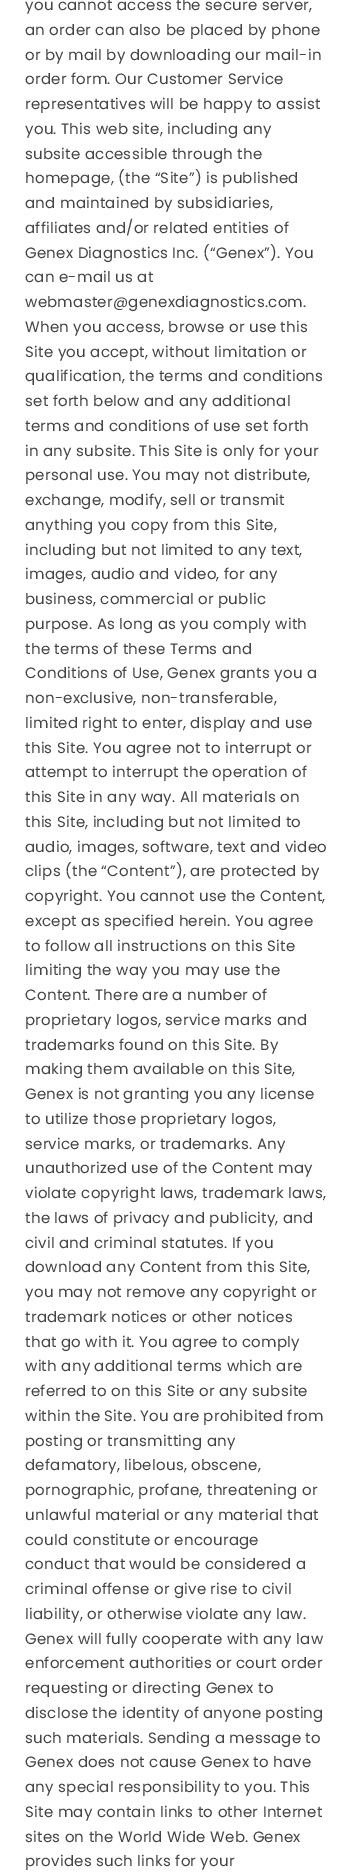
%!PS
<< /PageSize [352 1874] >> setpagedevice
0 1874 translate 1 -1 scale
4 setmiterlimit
1 setgray
0 0 352 1874 rectfill
/Poppins-Regular [15 0 0 -15 0 0] selectfont
0.267 setgray
25 10 moveto 0.25 0 (you cannot access the secure server,) ashow
25 35 moveto 0.25 0 (an order can also be placed by phone) ashow
25 60 moveto 0.25 0 (or by mail by downloading our mail-in) ashow
25 84 moveto 0.25 0 (order form. Our Customer Service) ashow
25 109 moveto 0.25 0 (representatives will be happy to assist) ashow
25 134 moveto 0.25 0 (you. This web site, including any) ashow
25 159 moveto 0.25 0 (subsite accessible through the) ashow
25 183 moveto 0.25 0 (homepage, \(the “Site”\) is published) ashow
25 208 moveto 0.25 0 (and maintained by subsidiaries,) ashow
25 233 moveto 0.25 0 (affiliates and/or related entities of) ashow
25 258 moveto 0.25 0 (Genex Diagnostics Inc. \(“Genex”\). You) ashow
25 282 moveto 0.25 0 (can e-mail us at) ashow
25 307 moveto 0.25 0 (webmaster@genexdiagnostics.com.) ashow
25 332 moveto 0.25 0 (When you access, browse or use this) ashow
25 357 moveto 0.25 0 (Site you accept, without limitation or) ashow
25 381 moveto 0.25 0 (qualification, the terms and conditions) ashow
25 406 moveto 0.25 0 (set forth below and any additional) ashow
25 431 moveto 0.25 0 (terms and conditions of use set forth) ashow
25 456 moveto 0.25 0 (in any subsite. This Site is only for your) ashow
25 480 moveto 0.25 0 (personal use. You may not distribute,) ashow
25 505 moveto 0.25 0 (exchange, modify, sell or transmit) ashow
25 530 moveto 0.25 0 (anything you copy from this Site,) ashow
25 555 moveto 0.25 0 (including but not limited to any text,) ashow
25 579 moveto 0.25 0 (images, audio and video, for any) ashow
25 604 moveto 0.25 0 (business, commercial or public) ashow
25 629 moveto 0.25 0 (purpose. As long as you comply with) ashow
25 654 moveto 0.25 0 (the terms of these Terms and) ashow
25 678 moveto 0.25 0 (Conditions of Use, Genex grants you a) ashow
25 703 moveto 0.25 0 (non-exclusive, non-transferable,) ashow
25 728 moveto 0.25 0 (limited right to enter, display and use) ashow
25 753 moveto 0.25 0 (this Site. You agree not to interrupt or) ashow
25 777 moveto 0.25 0 (attempt to interrupt the operation of) ashow
25 802 moveto 0.25 0 (this Site in any way. All materials on) ashow
25 827 moveto 0.25 0 (this Site, including but not limited to) ashow
25 852 moveto 0.25 0 (audio, images, software, text and video) ashow
25 876 moveto 0.25 0 (clips \(the “Content”\), are protected by) ashow
25 901 moveto 0.25 0 (copyright. You cannot use the Content,) ashow
25 926 moveto 0.25 0 (except as specified herein. You agree) ashow
25 951 moveto 0.25 0 (to follow all instructions on this Site) ashow
25 975 moveto 0.25 0 (limiting the way you may use the) ashow
25 1000 moveto 0.25 0 (Content. There are a number of) ashow
25 1025 moveto 0.25 0 (proprietary logos, service marks and) ashow
25 1050 moveto 0.25 0 (trademarks found on this Site. By) ashow
25 1074 moveto 0.25 0 (making them available on this Site,) ashow
25 1099 moveto 0.25 0 (Genex is not granting you any license) ashow
25 1124 moveto 0.25 0 (to utilize those proprietary logos,) ashow
25 1149 moveto 0.25 0 (service marks, or trademarks. Any) ashow
25 1173 moveto 0.25 0 (unauthorized use of the Content may) ashow
25 1198 moveto 0.25 0 (violate copyright laws, trademark laws,) ashow
25 1223 moveto 0.25 0 (the laws of privacy and publicity, and) ashow
25 1248 moveto 0.25 0 (civil and criminal statutes. If you) ashow
25 1272 moveto 0.25 0 (download any Content from this Site,) ashow
25 1297 moveto 0.25 0 (you may not remove any copyright or) ashow
25 1322 moveto 0.25 0 (trademark notices or other notices) ashow
25 1347 moveto 0.25 0 (that go with it. You agree to comply) ashow
25 1371 moveto 0.25 0 (with any additional terms which are) ashow
25 1396 moveto 0.25 0 (referred to on this Site or any subsite) ashow
25 1421 moveto 0.25 0 (within the Site. You are prohibited from) ashow
25 1446 moveto 0.25 0 (posting or transmitting any) ashow
25 1470 moveto 0.25 0 (defamatory, libelous, obscene,) ashow
25 1495 moveto 0.25 0 (pornographic, profane, threatening or) ashow
25 1520 moveto 0.25 0 (unlawful material or any material that) ashow
25 1545 moveto 0.25 0 (could constitute or encourage) ashow
25 1569 moveto 0.25 0 (conduct that would be considered a) ashow
25 1594 moveto 0.25 0 (criminal offense or give rise to civil) ashow
25 1619 moveto 0.25 0 (liability, or otherwise violate any law.) ashow
25 1644 moveto 0.25 0 (Genex will fully cooperate with any law) ashow
25 1668 moveto 0.25 0 (enforcement authorities or court order) ashow
25 1693 moveto 0.25 0 (requesting or directing Genex to) ashow
25 1718 moveto 0.25 0 (disclose the identity of anyone posting) ashow
25 1743 moveto 0.25 0 (such materials. Sending a message to) ashow
25 1767 moveto 0.25 0 (Genex does not cause Genex to have) ashow
25 1792 moveto 0.25 0 (any special responsibility to you. This) ashow
25 1817 moveto 0.25 0 (Site may contain links to other Internet) ashow
25 1842 moveto 0.25 0 (sites on the World Wide Web. Genex) ashow
25 1866 moveto 0.25 0 (provides such links for your) ashow
showpage
